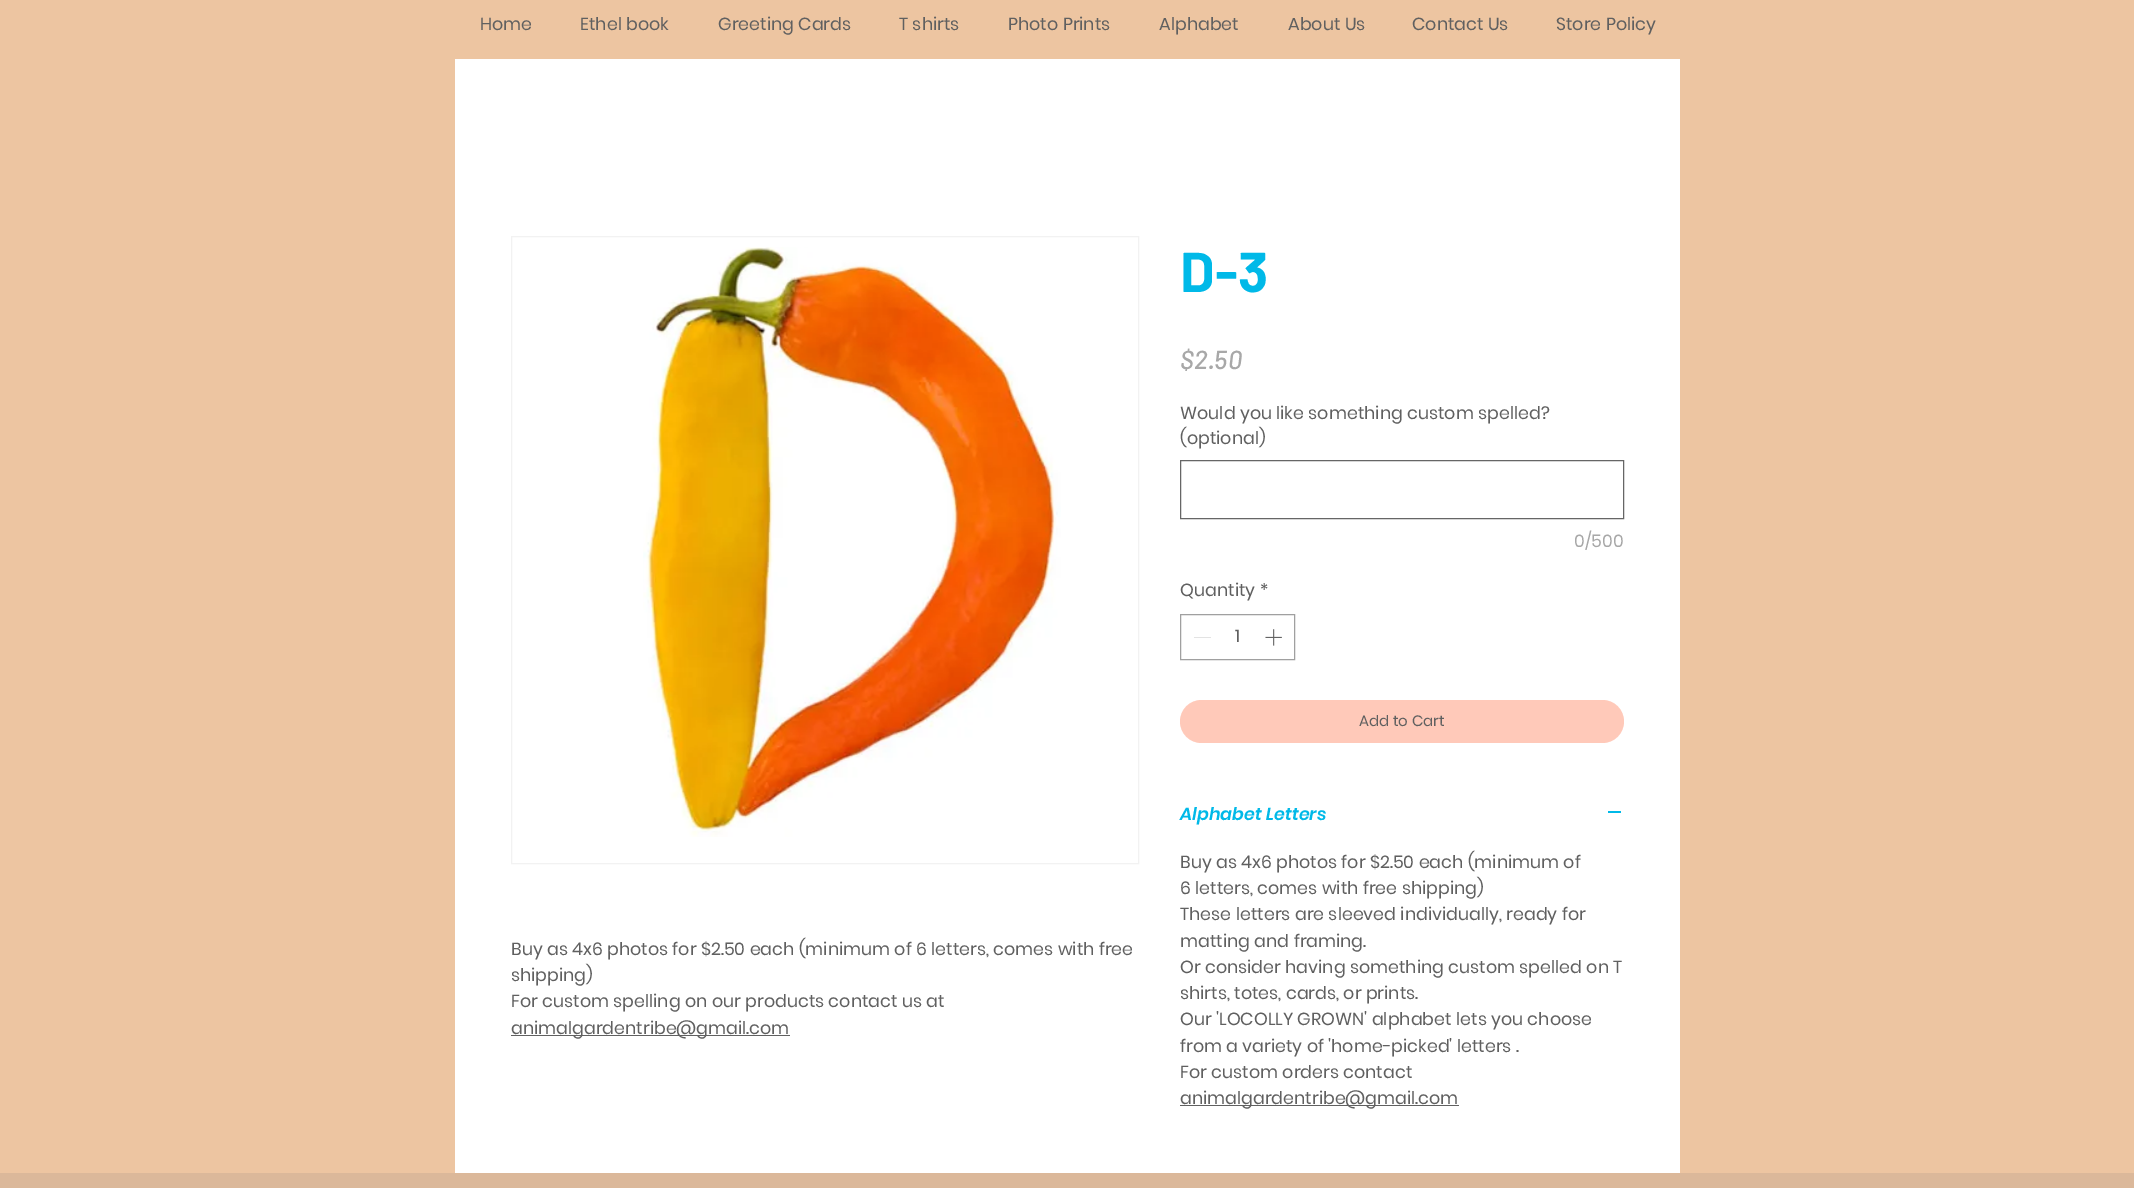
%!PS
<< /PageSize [2134 1188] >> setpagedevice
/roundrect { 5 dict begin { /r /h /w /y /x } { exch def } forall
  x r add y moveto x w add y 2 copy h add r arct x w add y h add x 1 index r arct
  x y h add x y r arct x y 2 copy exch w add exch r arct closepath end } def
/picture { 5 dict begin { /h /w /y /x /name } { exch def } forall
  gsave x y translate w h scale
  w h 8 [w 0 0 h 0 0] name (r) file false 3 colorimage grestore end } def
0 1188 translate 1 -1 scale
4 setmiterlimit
0.929 0.773 0.631 setrgbcolor
0 0 2134 1188 rectfill
/Poppins-Regular [17.5 0 0 -17.5 0 0] selectfont
0.376 setgray
480 30 moveto (Home) show
580 30 moveto (Ethel book) show
718 30 moveto (Greeting Cards) show
899 30 moveto (T shirts) show
1008 30 moveto (Photo Prints) show
1159 30 moveto (Alphabet) show
1288 30 moveto (About Us) show
1412 30 moveto (Contact Us) show
1556 30 moveto (Store Policy) show
1 setgray
455 59 1225 1114 rectfill
0.949 setgray
511.5 236.5 627 627 rectstroke
(img1.rgb) 643 247 418 590 picture
0.376 setgray
511 955 moveto (Buy as 4x6 photos for $2.50 each \(minimum of 6 letters, comes with free) show
511 981 moveto (shipping\)) show
511 1007 moveto (For custom spelling on our products contact us at) show
511 1035 279 1 rectfill
511 1034 moveto (animalgardentribe@gmail.com) show
/Barlow-Bold [56 0 0 -56 0 0] selectfont
0 0.725 0.91 setrgbcolor
1180 292 moveto (D-3) show
/Barlow-MediumItalic [26 0 0 -26 0 0] selectfont
0.659 setgray
1180 369 moveto ($2.50) show
/Poppins-Regular [17.5 0 0 -17.5 0 0] selectfont
0.376 setgray
1180 419 moveto (Would you like something custom spelled?) show
1180 444 moveto (\(optional\)) show
0.4 setgray
1180.5 460.5 443 58 rectstroke
0.659 setgray
1574 547 moveto (0/500) show
0.376 setgray
1180 596 moveto (Quantity) show
1260 596 moveto (*) show
0.627 setgray
1180.5 614.5 114 45 rectstroke
0.89 setgray
1194 637 17 1 rectfill
0.376 setgray
1235 642 moveto (1) show
(img2.rgb) 1265 629 17 17 picture
1 0.788 0.725 setrgbcolor
1180 700 444 43 21.5 roundrect fill
/Poppins-Regular [15 0 0 -15 0 0] selectfont
0.376 setgray
1359 726 moveto (Add to Cart) show
/Poppins-SemiBoldItalic [17.5 0 0 -17.5 0 0] selectfont
0 0.725 0.91 setrgbcolor
1180 820 moveto (Alphabet Letters) show
1608 811 13 2 rectfill
/Poppins-Regular [17.5 0 0 -17.5 0 0] selectfont
0.376 setgray
1180 868 moveto (Buy as 4x6 photos for $2.50 each \(minimum of) show
1180 894 moveto (6 letters, comes with free shipping\)) show
1180 920 moveto (These letters are sleeved individually, ready for) show
1180 947 moveto (matting and framing.) show
1180 973 moveto (Or consider having something custom spelled on T) show
1180 999 moveto (shirts, totes, cards, or prints.) show
1180 1025 moveto (Our 'LOCOLLY GROWN' alphabet lets you choose) show
1180 1052 moveto (from a variety of 'home-picked' letters .) show
1180 1078 moveto (For custom orders contact) show
1180 1105 279 1 rectfill
1180 1104 moveto (animalgardentribe@gmail.com) show
0.859 0.722 0.604 setrgbcolor
0 1173 2134 15 rectfill
showpage
